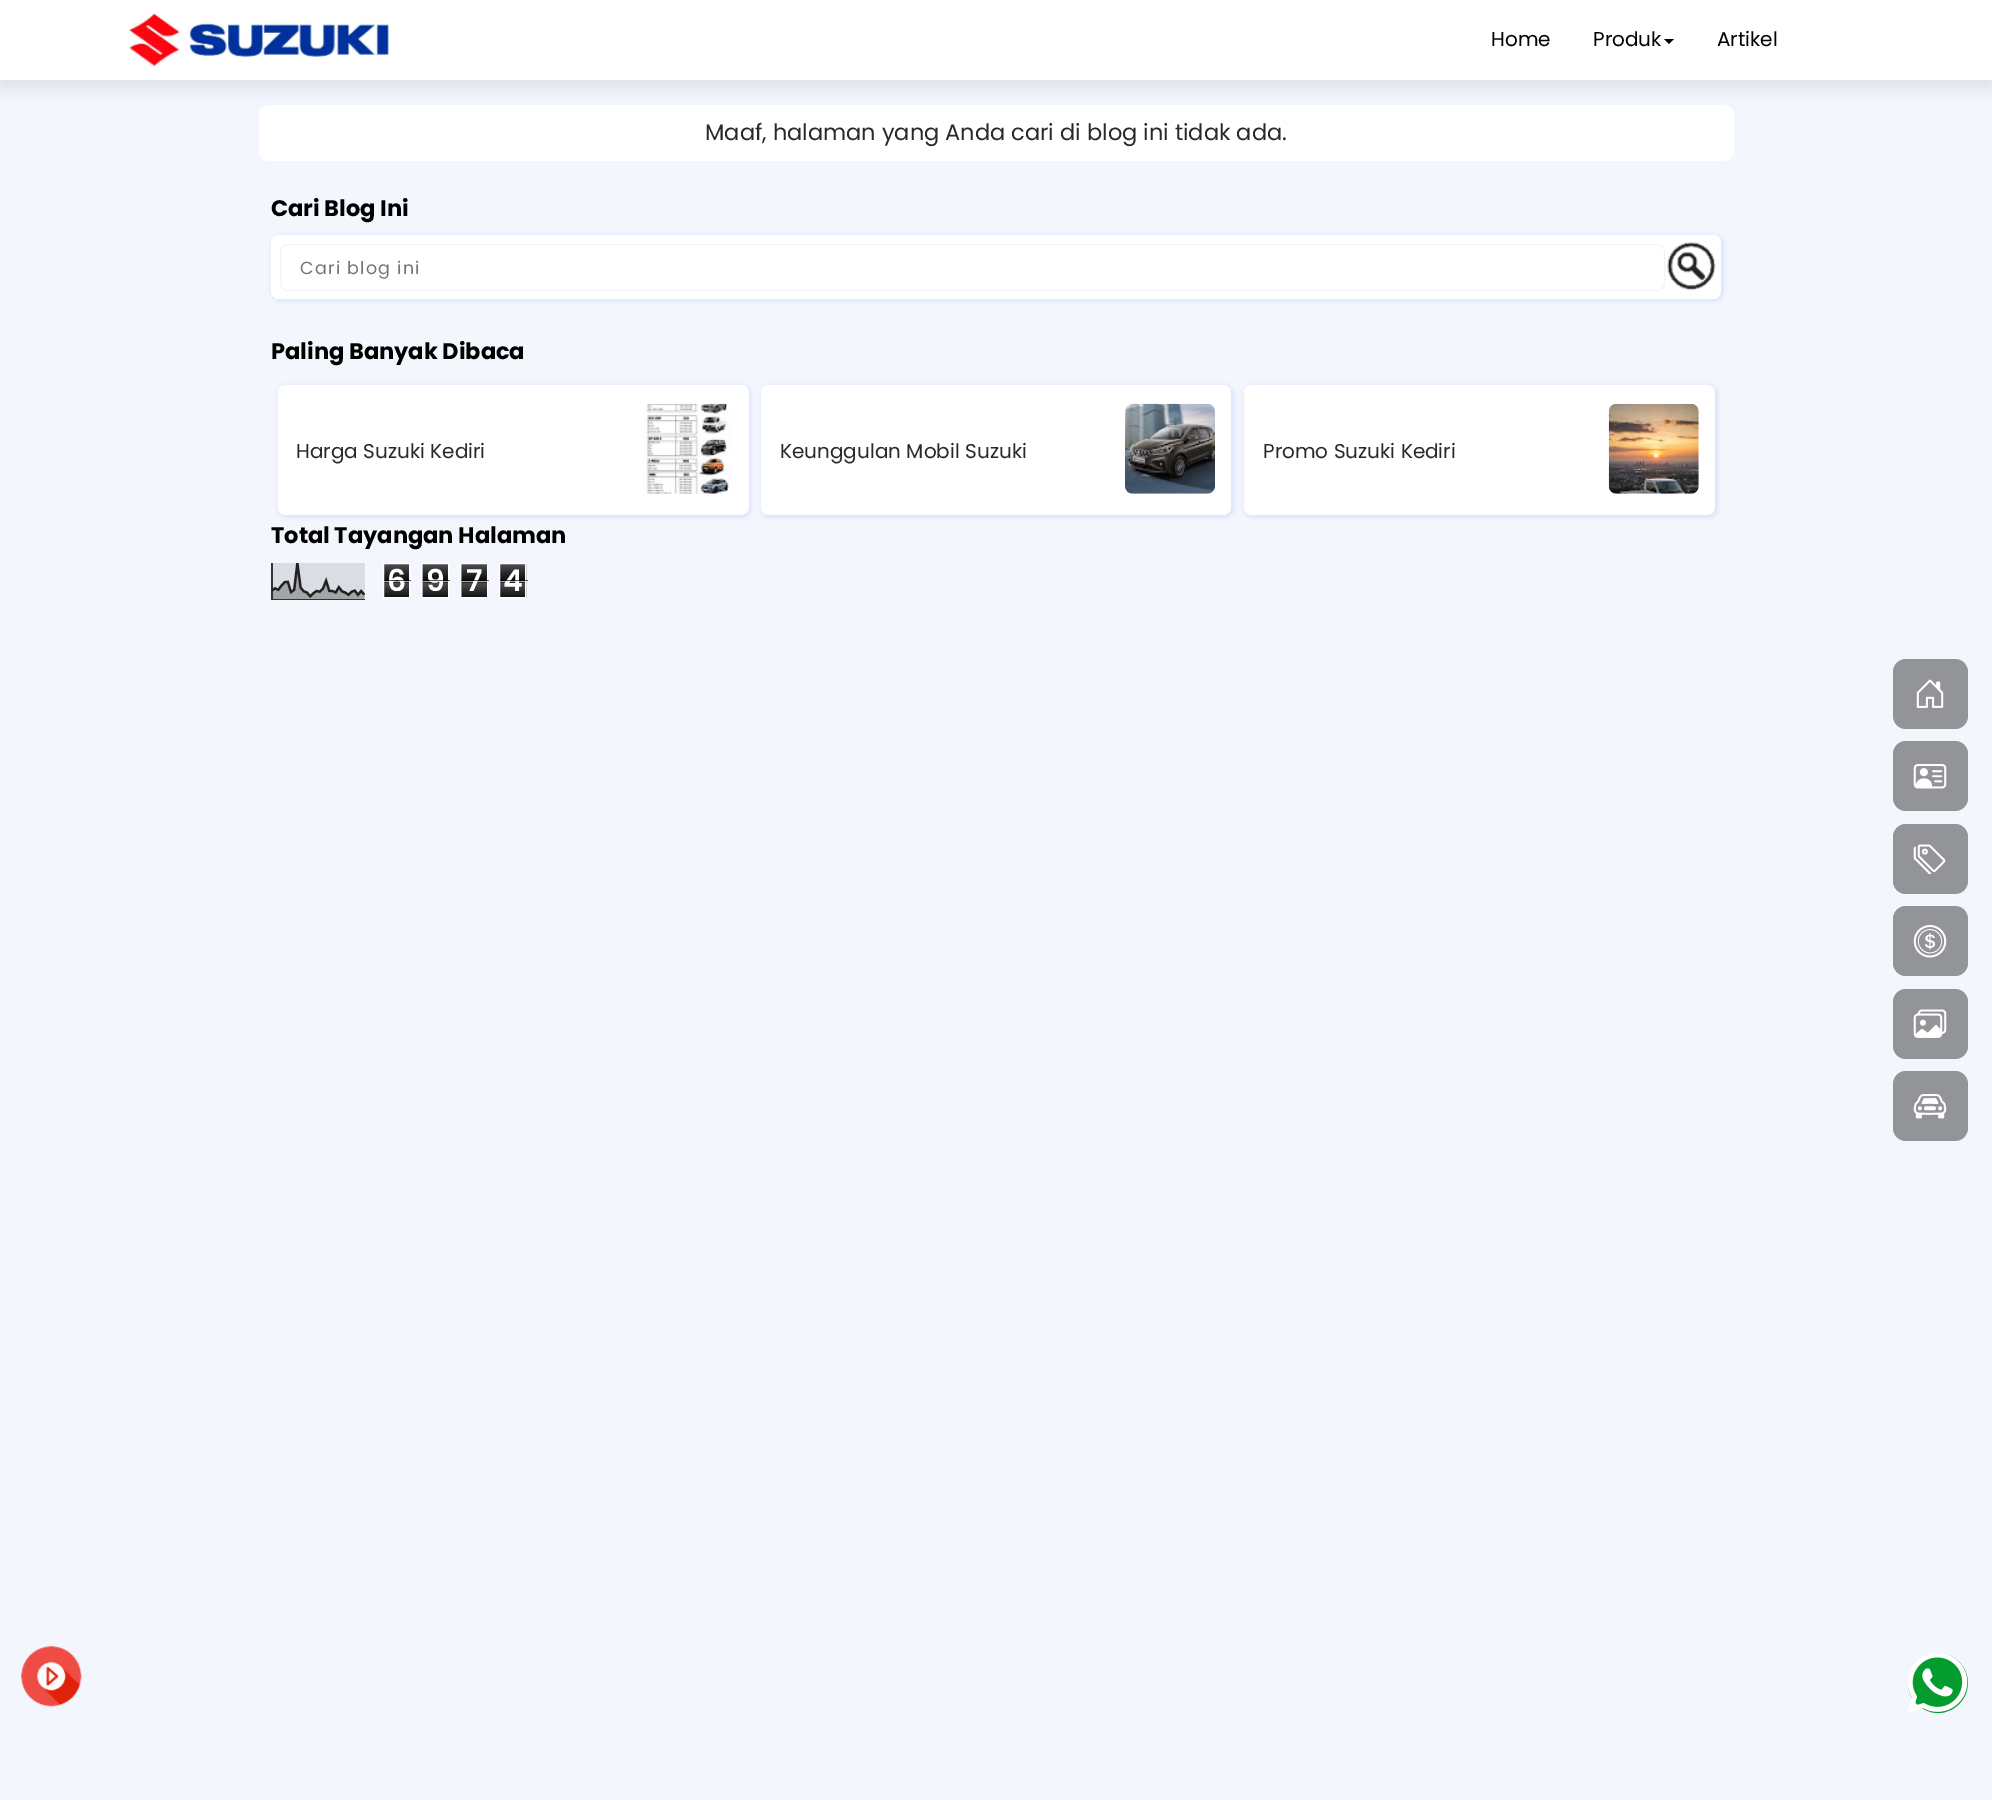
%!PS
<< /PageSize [1992 1800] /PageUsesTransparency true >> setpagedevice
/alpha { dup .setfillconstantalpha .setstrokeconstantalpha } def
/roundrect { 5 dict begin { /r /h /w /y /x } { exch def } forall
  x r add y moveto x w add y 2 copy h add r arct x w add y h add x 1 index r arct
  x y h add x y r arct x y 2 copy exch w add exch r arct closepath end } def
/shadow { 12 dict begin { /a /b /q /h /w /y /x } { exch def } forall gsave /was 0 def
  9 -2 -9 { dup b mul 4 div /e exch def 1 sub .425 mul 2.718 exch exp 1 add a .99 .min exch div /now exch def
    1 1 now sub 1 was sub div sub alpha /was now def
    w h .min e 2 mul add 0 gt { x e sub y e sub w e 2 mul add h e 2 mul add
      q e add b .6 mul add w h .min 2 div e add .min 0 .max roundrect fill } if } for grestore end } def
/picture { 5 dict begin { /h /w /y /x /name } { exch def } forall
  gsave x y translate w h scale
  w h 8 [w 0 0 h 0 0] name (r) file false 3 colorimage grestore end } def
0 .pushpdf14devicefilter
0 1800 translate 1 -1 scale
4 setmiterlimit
0.953 0.965 0.992 setrgbcolor
0 0 1992 1800 rectfill
1 setgray
259 105 1475 56 10 roundrect fill
0 setgray
0 6 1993 80 0 9.5 0.1 shadow
1 setgray
0 0 1992 80 rectfill
(img1.rgb) 128 13 261 55 picture
/Poppins-Regular [20 0 0 -20 0 0] selectfont
0 setgray
1491 46 moveto (Home) show
1593 46 moveto (Produk) show
newpath 1664 39 moveto 1674 39 lineto 1669 44 lineto closepath fill
1717 46 moveto (Artikel) show
/Poppins-Regular [22.5 0 0 -22.5 0 0] selectfont
0.161 setgray
705 140 moveto (Maaf, halaman yang Anda cari di blog ini tidak ada.) show
/Poppins-Bold [22.5 0 0 -22.5 0 0] selectfont
0 setgray
271 216 moveto (Cari Blog Ini) show
0.855 0.898 0.996 setrgbcolor
271 235 1453 66 9 2 1 shadow
1 setgray
271 235 1450 64 8 roundrect fill
0.945 0.953 0.965 setrgbcolor
280.5 244.5 1384 46 7.5 roundrect stroke
/Poppins-Regular [17.5 0 0 -17.5 0 0] selectfont
0.459 setgray
300 274 moveto 1.25 0 (Cari blog ini) ashow
(img2.rgb) 1667 242 49 49 picture
/Poppins-Bold [22.5 0 0 -22.5 0 0] selectfont
0 setgray
271 359 moveto (Paling Banyak Dibaca) show
0.855 0.898 0.996 setrgbcolor
278 385 473 133 9 2 1 shadow
1 setgray
278 385 471 130 8 roundrect fill
/Poppins-Regular [20 0 0 -20 0 0] selectfont
0.161 setgray
296 458 moveto (Harga Suzuki Kediri) show
(img3.rgb) 643 403 88 91 picture
0.855 0.898 0.996 setrgbcolor
761 385 473 133 9 2 1 shadow
1 setgray
761 385 470 130 8 roundrect fill
0.161 setgray
780 458 moveto (Keunggulan Mobil Suzuki) show
(img4.rgb) 1125 403 90 91 picture
0.855 0.898 0.996 setrgbcolor
1244 385 474 133 9 2 1 shadow
1 setgray
1244 385 471 130 8 roundrect fill
0.161 setgray
1263 458 moveto (Promo Suzuki Kediri) show
(img5.rgb) 1608 403 91 91 picture
/Poppins-Bold [22.5 0 0 -22.5 0 0] selectfont
0 setgray
271 543 moveto (Total Tayangan Halaman) show
(img6.rgb) 271 563 94 37 picture
(img7.rgb) 384 564 25 33 picture
1 setgray
383.5 563.5 26 34 rectstroke
/Poppins-SemiBold [30 0 0 -30 0 0] selectfont
387 591 moveto (6) show
0.65 alpha
0 setgray
384 580 27 1 rectfill
1 setgray
384 581 27 1 rectfill
1 alpha
(img8.rgb) 422 564 26 33 picture
421.5 563.5 27 34 rectstroke
426 591 moveto (9) show
0.65 alpha
0 setgray
423 580 27 1 rectfill
1 setgray
423 581 27 1 rectfill
1 alpha
(img9.rgb) 461 564 26 33 picture
460.5 563.5 27 34 rectstroke
466 591 moveto (7) show
0.65 alpha
0 setgray
461 580 28 1 rectfill
1 setgray
461 581 28 1 rectfill
1 alpha
(img10.rgb) 500 563 27 35 picture
499.5 563.5 26 34 rectstroke
503 591 moveto (4) show
0.65 alpha
0 setgray
500 580 28 1 rectfill
1 setgray
500 581 28 1 rectfill
1 alpha
0.573 0.58 0.596 setrgbcolor
1893 659 75 70 13 roundrect fill
(img11.rgb) 1916 679 28 29 picture
1893 741 75 70 13 roundrect fill
(img12.rgb) 1913 764 34 25 picture
1893 824 75 70 13 roundrect fill
(img13.rgb) 1913 844 33 31 picture
1893 906 75 70 13 roundrect fill
(img14.rgb) 1913 925 34 33 picture
1893 989 75 70 13 roundrect fill
(img15.rgb) 1913 1009 34 29 picture
1893 1071 75 70 13 roundrect fill
(img16.rgb) 1913 1094 34 25 picture
(img17.rgb) 21 1646 61 61 picture
0.016 0.612 0.184 setrgbcolor
newpath 1938 1683 30 0 360 arc closepath fill
(img18.rgb) 1908 1652 60 60 picture
.poppdf14devicefilter showpage
